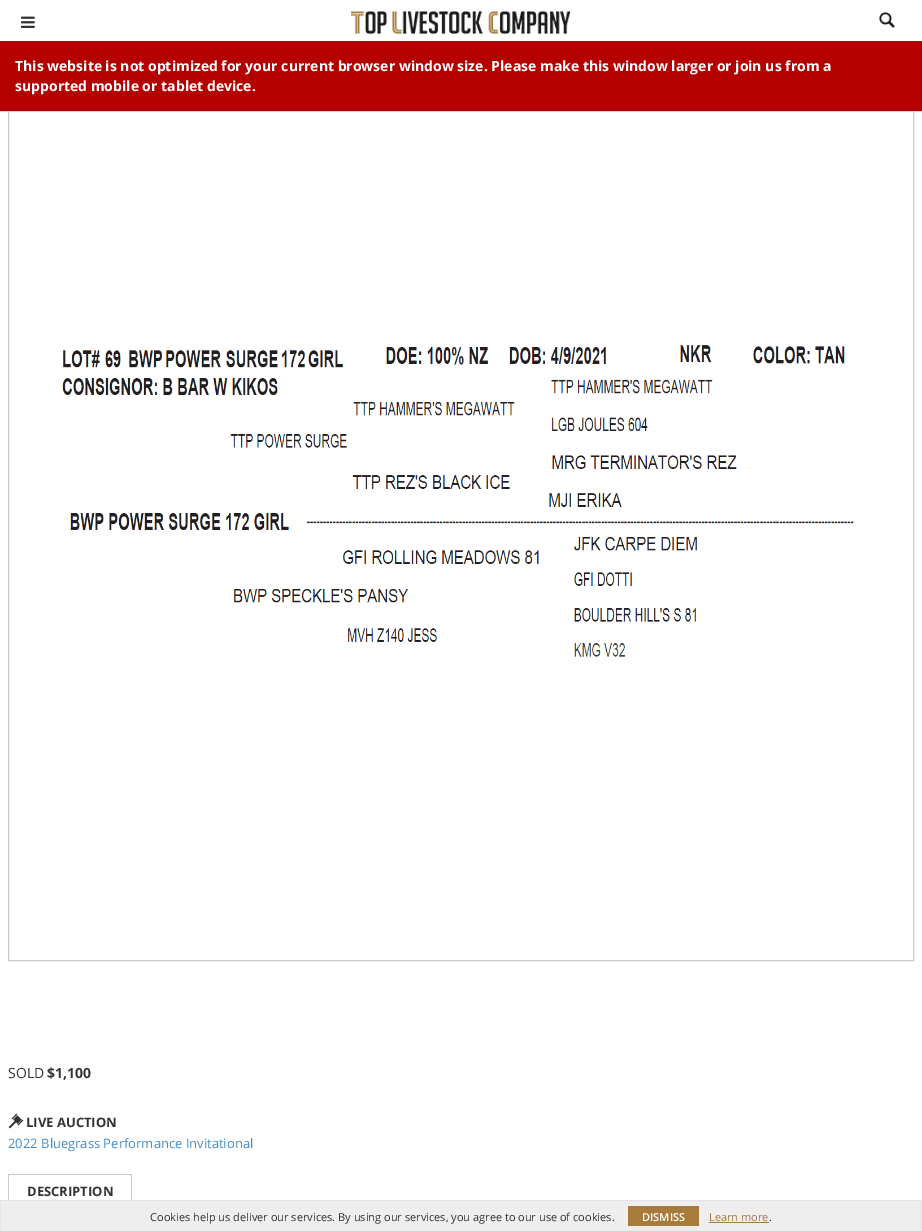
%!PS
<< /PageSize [922 1231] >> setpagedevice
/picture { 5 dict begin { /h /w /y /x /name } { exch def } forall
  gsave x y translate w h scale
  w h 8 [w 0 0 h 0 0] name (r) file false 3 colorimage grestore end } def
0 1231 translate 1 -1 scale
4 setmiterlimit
1 setgray
0 0 922 1231 rectfill
(img1.rgb) 21 16 14 12 picture
(img2.rgb) 351 11 219 23 picture
(img3.rgb) 879 12 16 16 picture
0.792 setgray
8.5 55.5 905 905 rectstroke
0.71 0 0 setrgbcolor
0 41 922 70 rectfill
0.922 0.8 0.82 setrgbcolor
0 111 922 1 rectfill
/OpenSans-Bold [14 0 0 -14 0 0] selectfont
1 setgray
15 71 moveto (This website is not optimized for your current browser window size. Please make this window larger or join us from a) show
15 91 moveto (supported mobile or tablet device.) show
(img4.rgb) 62 345 792 312 picture
/OpenSans-Regular [14 0 0 -14 0 0] selectfont
0.2 setgray
8 1078 moveto (SOLD) show
/OpenSans-Bold [14 0 0 -14 0 0] selectfont
47 1078 moveto ($1,100) show
(img5.rgb) 8 1113 16 16 picture
/OpenSans-Bold [13 0 0 -13 0 0] selectfont
26 1127 moveto (LIVE AUCTION) show
/OpenSans-Regular [13 0 0 -13 0 0] selectfont
0.259 0.545 0.792 setrgbcolor
8 1148 moveto (2022 Bluegrass Performance Invitational) show
0.792 setgray
8 1174 124 1 rectfill
131 1174 1 33 rectfill
8 1174 1 33 rectfill
/OpenSans-Bold [13 0 0 -13 0 0] selectfont
0.2 setgray
27 1196 moveto (DESCRIPTION) show
0.933 setgray
1 1201 920 30 rectfill
0.894 setgray
0 1200 922 1 rectfill
921 1200 1 31 rectfill
0 1200 1 31 rectfill
/OpenSans-Regular [11 0 0 -11 0 0] selectfont
0.2 setgray
150 1221 moveto (Cookies help us deliver our services. By using our services, you agree to our use of cookies.) show
0.651 0.482 0.231 setrgbcolor
628 1206 71 20 rectfill
/OpenSans-SemiBold [11 0 0 -11 0 0] selectfont
1 setgray
642 1221 moveto (DISMISS) show
/OpenSans-Regular [11 0 0 -11 0 0] selectfont
0.651 0.482 0.231 setrgbcolor
709 1221 moveto (Learn more) show
709 1222 60 1 rectfill
0.2 setgray
769 1221 moveto (.) show
showpage
